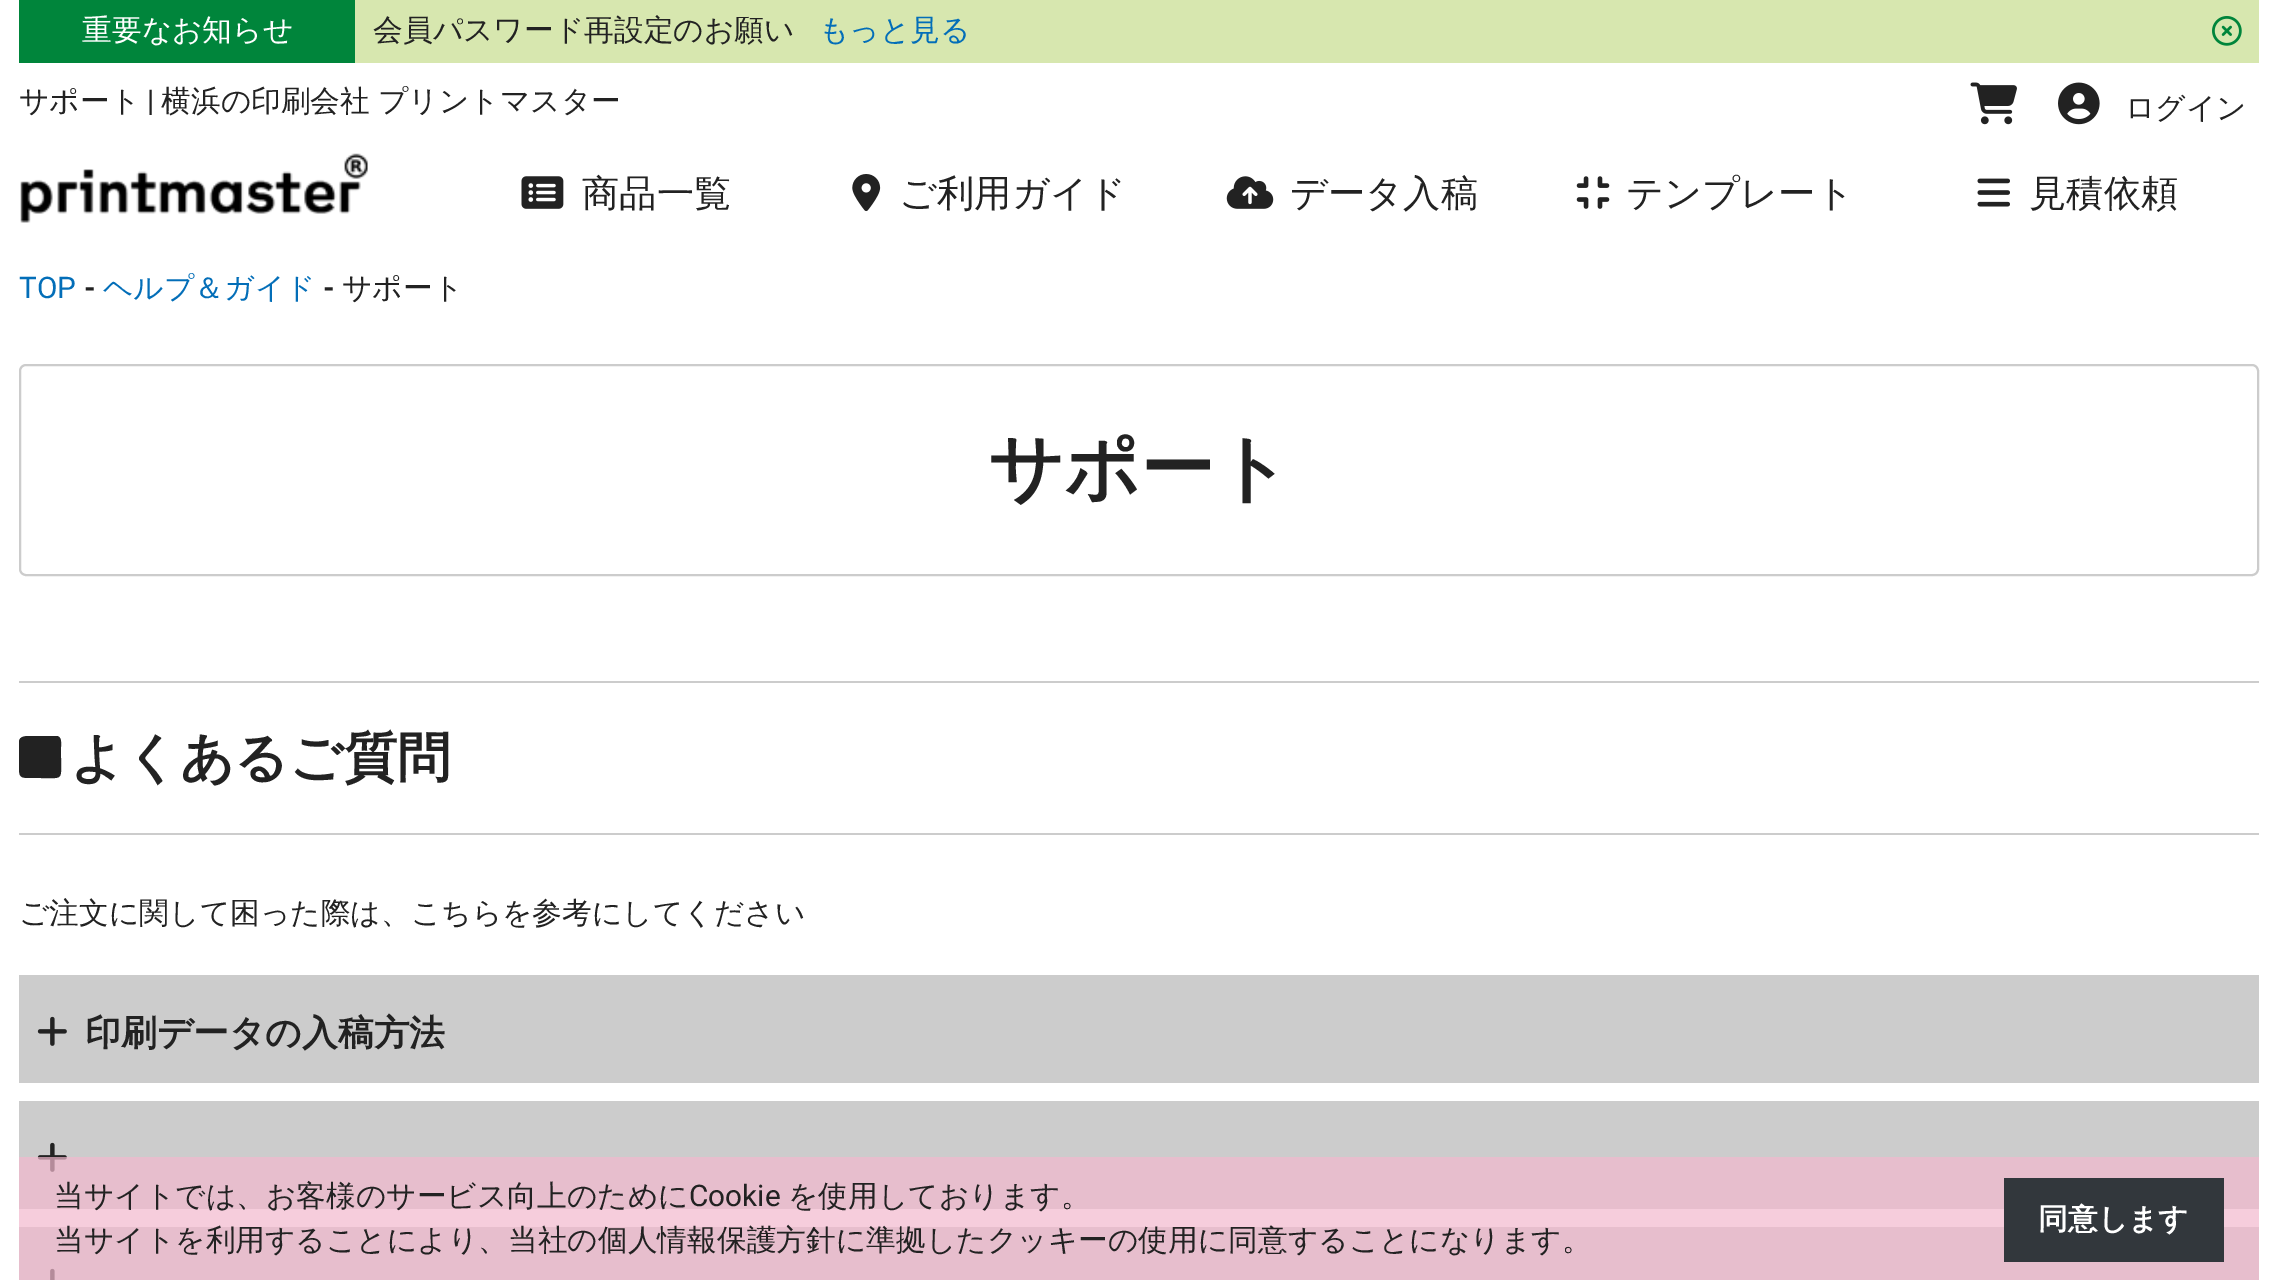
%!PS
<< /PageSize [2278 1280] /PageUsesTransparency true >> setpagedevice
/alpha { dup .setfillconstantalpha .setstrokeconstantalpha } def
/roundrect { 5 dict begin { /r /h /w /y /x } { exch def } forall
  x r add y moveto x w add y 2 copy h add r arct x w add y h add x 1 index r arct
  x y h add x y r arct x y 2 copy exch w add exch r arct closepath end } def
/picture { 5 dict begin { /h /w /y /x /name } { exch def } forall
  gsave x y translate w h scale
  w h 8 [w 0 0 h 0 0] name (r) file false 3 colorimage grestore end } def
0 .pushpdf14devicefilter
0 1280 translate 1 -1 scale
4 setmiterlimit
1 setgray
0 0 2278 1280 rectfill
0 0.522 0.231 setrgbcolor
19 0 336 63 rectfill
/WenQuanYiZenHei-Medium [29.75 0 0 -29.75 0 0] selectfont
1 setgray
82 40 moveto (重要なお知らせ) show
0.843 0.906 0.686 setrgbcolor
355 0 1904 63 rectfill
0.133 setgray
373 40 moveto (会員パスワード再設定のお願い) show
0.012 0.431 0.722 setrgbcolor
819 40 moveto (もっと見る) show
(img1.rgb) 2212 16 30 30 picture
0.133 setgray
19 111 moveto (サポート) show
/Roboto-Regular [29.75 0 0 -29.75 0 0] selectfont
147 111 moveto (|) show
/WenQuanYiZenHei-Medium [29.75 0 0 -29.75 0 0] selectfont
161 111 moveto -1 0 32 (横浜の印刷会社 プリントマスター) widthshow
(img2.rgb) 1970 82 47 43 picture
(img3.rgb) 2058 82 42 43 picture
2125 118 moveto (ログイン) show
(img4.rgb) 20 153 348 70 picture
(img5.rgb) 521 176 43 33 picture
/WenQuanYiZenHei-Medium [37.25 0 0 -37.25 0 0] selectfont
582 206 moveto (商品一覧) show
(img6.rgb) 852 174 29 38 picture
899 206 moveto (ご利用ガイド) show
(img7.rgb) 1226 176 48 33 picture
1290 206 moveto (データ入稿) show
(img8.rgb) 1576 176 34 33 picture
1626 206 moveto (テンプレート) show
(img9.rgb) 1977 178 33 29 picture
2029 206 moveto (見積依頼) show
/Roboto-Regular [29.75 0 0 -29.75 0 0] selectfont
0.012 0.431 0.722 setrgbcolor
19 298 moveto (TOP) show
/Roboto-Bold [29.75 0 0 -29.75 0 0] selectfont
0.133 setgray
84 298 moveto (-) show
/WenQuanYiZenHei-Medium [29.75 0 0 -29.75 0 0] selectfont
0.012 0.431 0.722 setrgbcolor
103 298 moveto (ヘルプ＆ガイド) show
/Roboto-Bold [29.75 0 0 -29.75 0 0] selectfont
0.133 setgray
323 298 moveto (-) show
/WenQuanYiZenHei-Medium [29.75 0 0 -29.75 0 0] selectfont
342 298 moveto (サポート) show
0.8 setgray
2 setlinewidth
20 365 2238 210 6 roundrect stroke
/WenQuanYiZenHei-Bold [74.5 0 0 -74.5 0 0] selectfont
0.133 setgray
988 494 moveto (サポート) show
0.8 setgray
19 681 2240 2 rectfill
19 833 2240 2 rectfill
0.133 setgray
newpath 19 742 moveto 19 736 26 736 30 736 curveto 57 736 lineto 62 737 61 743 61 747 curveto 61 757 lineto 61 781 64 778 40 778 curveto 30 778 lineto 20 778 19 777 19 767 curveto closepath fill
/WenQuanYiZenHei-Bold [53.5 0 0 -53.5 0 0] selectfont
70 776 moveto (よくあるご質問) show
/WenQuanYiZenHei-Medium [29.75 0 0 -29.75 0 0] selectfont
19 923 moveto (ご注文に関して困った際は、こちらを参考にしてください) show
0.8 setgray
19 975 2240 108 rectfill
(img10.rgb) 37 1016 30 30 picture
/WenQuanYiZenHei-Bold [35.75 0 0 -35.75 0 0] selectfont
0.133 setgray
85 1045 moveto (印刷データの入稿方法) show
0.8 setgray
19 1101 2240 108 rectfill
(img10.rgb) 37 1142 30 30 picture
19 1227 2240 53 rectfill
(img11.rgb) 50 1268 5 12 picture
0.7 alpha
0.949 0.722 0.804 setrgbcolor
19 1157 2240 123 rectfill
/WenQuanYiZenHei-Medium [29.75 0 0 -29.75 0 0] selectfont
1 alpha
0.133 setgray
54 1206 moveto (当サイトでは、お客様のサービス向上のために) show
/Roboto-Regular [29.75 0 0 -29.75 0 0] selectfont
689 1206 moveto (Cookie) show
/WenQuanYiZenHei-Medium [29.75 0 0 -29.75 0 0] selectfont
788 1206 moveto (を使用しております。) show
54 1250 moveto (当サイトを利用することにより、当社の個人情報保護方針に準拠したクッキーの使用に同意することになります。) show
0.196 0.216 0.235 setrgbcolor
2004 1178 220 84 rectfill
/WenQuanYiZenHei-Bold [29.75 0 0 -29.75 0 0] selectfont
1 setgray
2038 1229 moveto (同意します) show
.poppdf14devicefilter showpage
